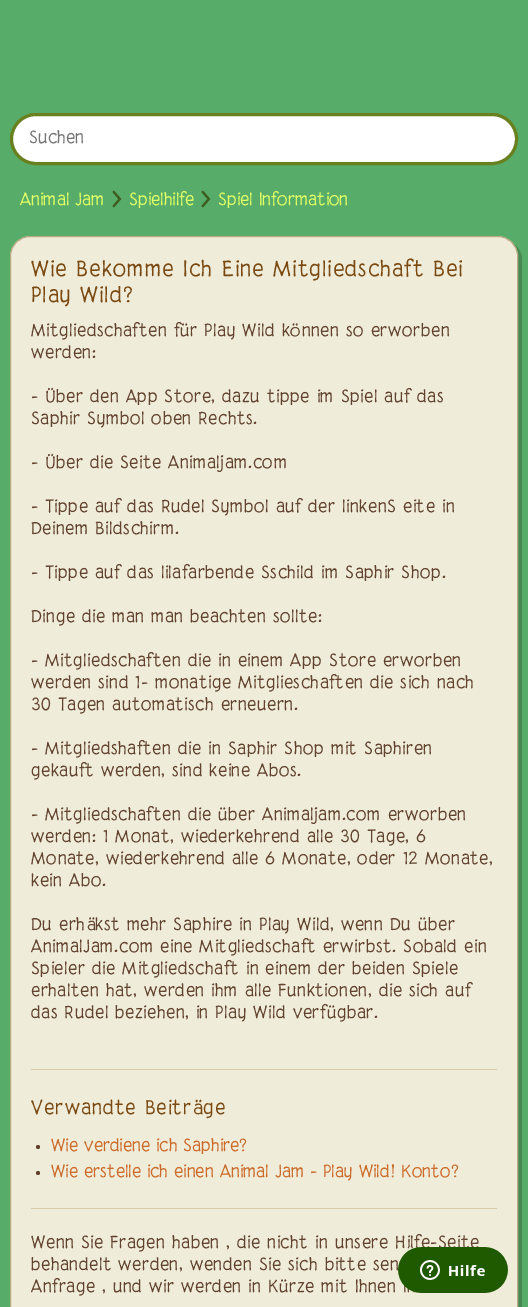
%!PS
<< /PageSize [528 1307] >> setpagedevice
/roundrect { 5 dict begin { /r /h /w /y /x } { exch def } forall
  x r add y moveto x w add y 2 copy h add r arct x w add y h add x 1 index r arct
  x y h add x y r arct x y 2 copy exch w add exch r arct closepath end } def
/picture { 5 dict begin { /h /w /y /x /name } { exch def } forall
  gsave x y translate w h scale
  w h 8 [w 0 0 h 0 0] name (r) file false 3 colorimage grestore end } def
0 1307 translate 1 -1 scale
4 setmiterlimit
0.337 0.675 0.408 setrgbcolor
0 0 528 1307 rectfill
1 setgray
11.5 114.5 505 49 24.5 roundrect gsave fill grestore
0.408 0.502 0.114 setrgbcolor
3 setlinewidth
stroke
/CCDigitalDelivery-Regular [16 0 0 -16 0 0] selectfont
0.459 setgray
29 143 moveto (Suchen) show
0.882 1 0.4 setrgbcolor
20 205 moveto (Animal Jam) show
(img1.rgb) 112 190 10 18 picture
129 205 moveto (Spielhilfe) show
(img1.rgb) 201 190 10 18 picture
218 205 moveto (Spiel Information) show
0.271 0.541 0.325 setrgbcolor
newpath 18 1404 moveto 22 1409 27 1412 34 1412 curveto 502 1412 lineto 513 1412 522 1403 522 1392 curveto 522 260 lineto 522 253 519 248 514 244 curveto 517 247 518 251 518 256 curveto 518 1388 lineto 518 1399 509 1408 498 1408 curveto 30 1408 lineto 25 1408 21 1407 18 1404 curveto closepath fill
0.941 0.925 0.855 setrgbcolor
10.5 236.5 507 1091 19.5 roundrect gsave fill grestore
0.741 0.671 0.518 setrgbcolor
1 setlinewidth
stroke
/CCDigitalDelivery-Regular [20 0 0 -20 0 0] selectfont
0.478 0.29 0.071 setrgbcolor
31 276 moveto 1 0 (Wie Bekomme Ich Eine Mitgliedschaft Bei) ashow
31 302 moveto 1 0 (Play Wild?) ashow
0.855 0.8 0.659 setrgbcolor
31 1069 466 1 rectfill
/CCDigitalDelivery-Regular [16 0 0 -16 0 0] selectfont
0.38 0.263 0.184 setrgbcolor
31 336 moveto 0.5 0 (Mitgliedschaften für Play Wild können so erworben) ashow
31 358 moveto 0.5 0 (werden:) ashow
31 402 moveto 0.5 0 (- Über den App Store, dazu tippe im Spiel auf das) ashow
31 424 moveto 0.5 0 (Saphir Symbol oben Rechts.) ashow
31 468 moveto 0.5 0 (- Über die Seite Animaljam.com) ashow
31 512 moveto 0.5 0 (- Tippe auf das Rudel Symbol auf der linkenS eite in) ashow
31 534 moveto 0.5 0 (Deinem Bildschirm.) ashow
31 578 moveto 0.5 0 (- Tippe auf das lilafarbende Sschild im Saphir Shop.) ashow
31 622 moveto 0.5 0 (Dinge die man man beachten sollte:) ashow
31 666 moveto 0.5 0 (- Mitgliedschaften die in einem App Store erworben) ashow
31 688 moveto 0.5 0 (werden sind 1- monatige Mitglieschaften die sich nach) ashow
31 710 moveto 0.5 0 (30 Tagen automatisch erneuern.) ashow
31 754 moveto 0.5 0 (- Mitgliedshaften die in Saphir Shop mit Saphiren) ashow
31 776 moveto 0.5 0 (gekauft werden, sind keine Abos.) ashow
31 820 moveto 0.5 0 (- Mitgliedschaften die über Animaljam.com erworben) ashow
31 842 moveto 0.5 0 (werden: 1 Monat, wiederkehrend alle 30 Tage, 6) ashow
31 864 moveto 0.5 0 (Monate, wiederkehrend alle 6 Monate, oder 12 Monate,) ashow
31 886 moveto 0.5 0 (kein Abo.) ashow
31 930 moveto 0.5 0 (Du erhäkst mehr Saphire in Play Wild, wenn Du über) ashow
31 952 moveto 0.5 0 (AnimalJam.com eine Mitgliedschaft erwirbst. Sobald ein) ashow
31 974 moveto 0.5 0 (Spieler die Mitgliedschaft in einem der beiden Spiele) ashow
31 996 moveto 0.5 0 (erhalten hat, werden ihm alle Funktionen, die sich auf) ashow
31 1018 moveto 0.5 0 (das Rudel beziehen, in Play Wild verfügbar.) ashow
0.855 0.8 0.659 setrgbcolor
31 1208 466 1 rectfill
/CCDigitalDelivery-Regular [18 0 0 -18 0 0] selectfont
0.478 0.29 0.071 setrgbcolor
31 1114 moveto 1 0 (Verwandte Beiträge) ashow
0.38 0.263 0.184 setrgbcolor
newpath 38 1147 2 0 360 arc closepath fill
/CCDigitalDelivery-Regular [16 0 0 -16 0 0] selectfont
0.8 0.424 0.169 setrgbcolor
51 1151 moveto (Wie verdiene ich Saphire?) show
0.38 0.263 0.184 setrgbcolor
newpath 38 1173 2 0 360 arc closepath fill
0.8 0.424 0.169 setrgbcolor
51 1177 moveto (Wie erstelle ich einen Animal Jam - Play Wild! Konto?) show
0.38 0.263 0.184 setrgbcolor
31 1248 moveto 0.5 0 (Wenn Sie Fragen haben , die nicht in unsere Hilfe-Seite) ashow
31 1270 moveto 0.5 0 (behandelt werden, wenden Sie sich bitte sen) ashow
31 1292 moveto 0.5 0 (Anfrage , und wir werden in Kürze mit Ihnen) ashow
(img2.rgb) 398 1247 110 46 picture
showpage
